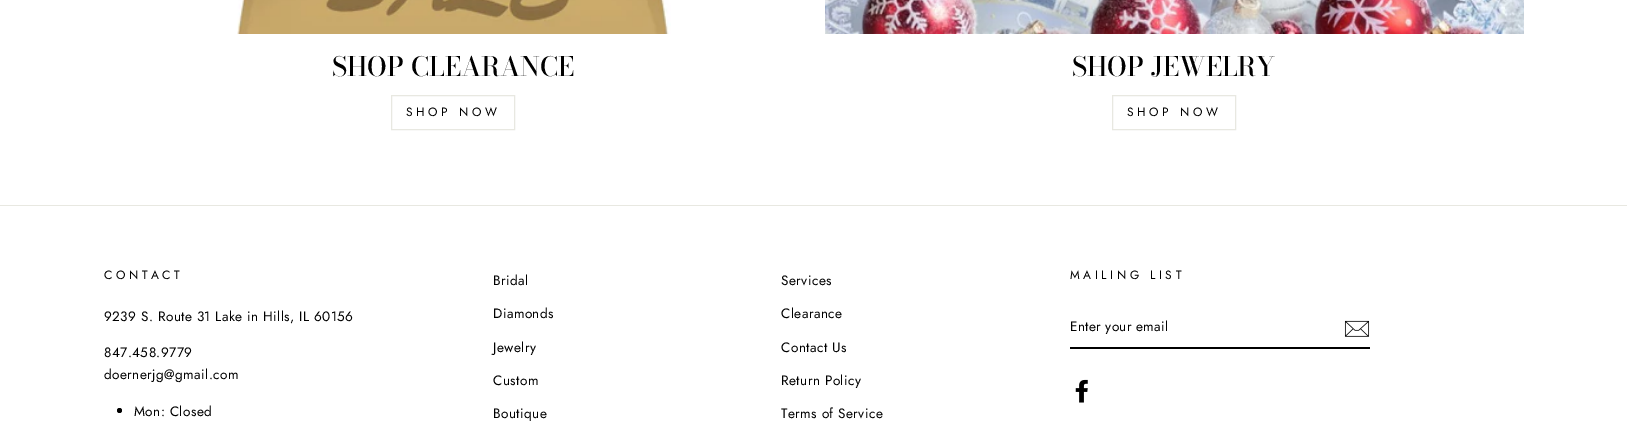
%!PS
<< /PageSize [1627 421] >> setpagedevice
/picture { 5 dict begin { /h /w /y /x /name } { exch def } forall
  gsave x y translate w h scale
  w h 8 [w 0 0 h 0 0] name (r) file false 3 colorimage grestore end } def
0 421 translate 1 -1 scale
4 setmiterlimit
1 setgray
0 0 1627 421 rectfill
(img1.rgb) 237 0 434 34 picture
/BodoniModa-Medium [26.5 0 0 -26.5 0 0] selectfont
0 setgray
332 76 moveto (SHOP CLEARANCE) show
0.91 0.91 0.882 setrgbcolor
391.5 95.5 123 34 rectstroke
/Jost-Regular [12 0 0 -12 0 0] selectfont
0 setgray
406 116 moveto 3.6 0 (SHOP NOW) ashow
(img2.rgb) 825 0 699 34 picture
/BodoniModa-Medium [26.5 0 0 -26.5 0 0] selectfont
1072 76 moveto (SHOP JEWELRY) show
0.91 0.91 0.882 setrgbcolor
1112.5 95.5 123 34 rectstroke
/Jost-Regular [12 0 0 -12 0 0] selectfont
0 setgray
1127 116 moveto 3.6 0 (SHOP NOW) ashow
0.91 0.91 0.882 setrgbcolor
0 205 1627 1 rectfill
0 setgray
104 279 moveto 3.6 0 (CONTACT) ashow
/Jost-Regular [13.6 0 0 -13.6 0 0] selectfont
104 321 moveto 0.4 0 (9239 S. Route 31 Lake in Hills, IL 60156) ashow
104 357 moveto 0.4 0 (847.458.9779) ashow
104 379 moveto 0.4 0 (doernerjg@gmail.com) ashow
newpath 119.5 410.5 2.5 0 360 arc closepath fill
134 416 moveto 0.4 0 (Mon: Closed) ashow
493 285 moveto 0.4 0 (Bridal) ashow
493 318 moveto 0.4 0 (Diamonds) ashow
493 352 moveto 0.4 0 (Jewelry) ashow
493 385 moveto 0.4 0 (Custom) ashow
493 418 moveto 0.4 0 (Boutique) ashow
781 285 moveto 0.4 0 (Services) ashow
781 318 moveto 0.4 0 (Clearance) ashow
781 352 moveto 0.4 0 (Contact Us) ashow
781 385 moveto 0.4 0 (Return Policy) ashow
781 418 moveto 0.4 0 (Terms of Service) ashow
/Jost-Regular [12 0 0 -12 0 0] selectfont
1070 279 moveto 3.6 0 (MAILING LIST) ashow
1070 347 300 2 rectfill
/Jost-Regular [13.6 0 0 -13.6 0 0] selectfont
1070 331 moveto 0.3 0 (Enter your email) ashow
(img3.rgb) 1344 320 26 17 picture
(img4.rgb) 1075 379 13 24 picture
showpage
